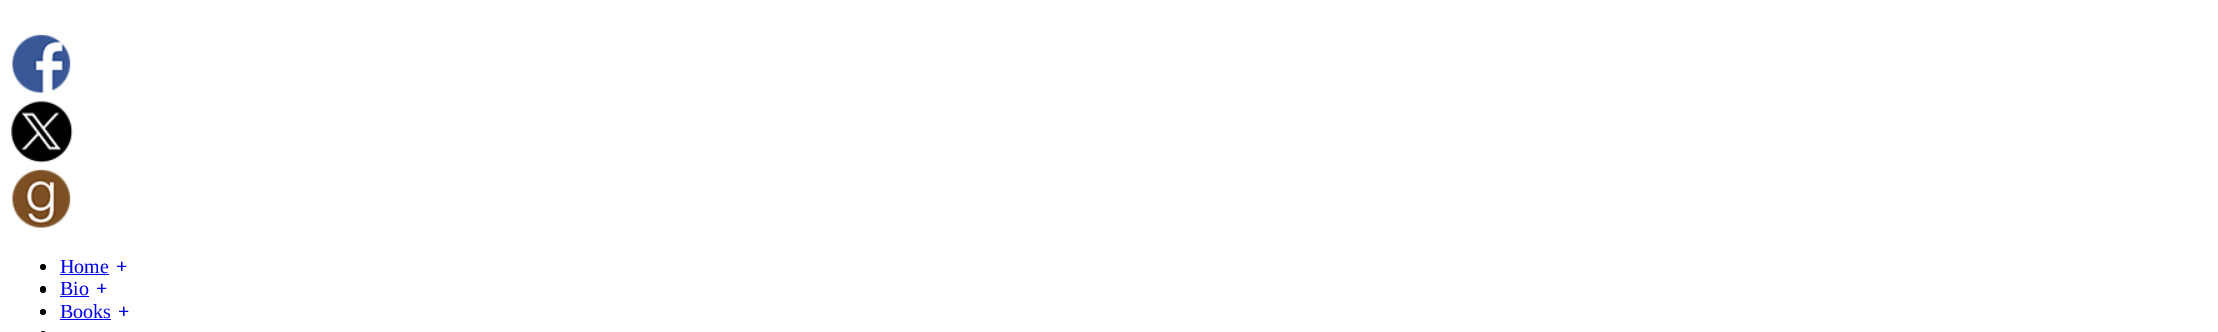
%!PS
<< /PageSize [2218 332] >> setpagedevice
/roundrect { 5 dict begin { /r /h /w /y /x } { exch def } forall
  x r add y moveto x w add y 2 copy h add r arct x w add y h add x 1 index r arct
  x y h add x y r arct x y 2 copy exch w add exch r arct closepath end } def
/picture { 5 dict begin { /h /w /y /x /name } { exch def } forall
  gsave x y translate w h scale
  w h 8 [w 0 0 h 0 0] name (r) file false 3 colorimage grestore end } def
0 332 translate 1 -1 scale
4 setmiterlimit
1 setgray
0 0 2218 332 rectfill
(img1.rgb) 12 34 59 59 picture
(img2.rgb) 11 101 62 62 picture
(img3.rgb) 12 169 59 59 picture
0 setgray
newpath 43 267 3 0 360 arc closepath fill
/LiberationSerif-Regular [20 0 0 -20 0 0] selectfont
0 0 0.933 setrgbcolor
60 273 moveto (Home) show
60 274 49 1 rectfill
/LiberationSerif-Bold [20 0 0 -20 0 0] selectfont
116 273 moveto (+) show
0 setgray
40 286 6 7 3 roundrect fill
/LiberationSerif-Regular [20 0 0 -20 0 0] selectfont
0 0 0.933 setrgbcolor
60 295 moveto (Bio) show
60 296 29 1 rectfill
/LiberationSerif-Bold [20 0 0 -20 0 0] selectfont
96 295 moveto (+) show
0 setgray
newpath 43 312 3 0 360 arc closepath fill
/LiberationSerif-Regular [20 0 0 -20 0 0] selectfont
0 0 0.933 setrgbcolor
60 318 moveto (Books) show
60 319 51 1 rectfill
/LiberationSerif-Bold [20 0 0 -20 0 0] selectfont
118 318 moveto (+) show
0 setgray
40 331 6 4 3 roundrect fill
showpage
